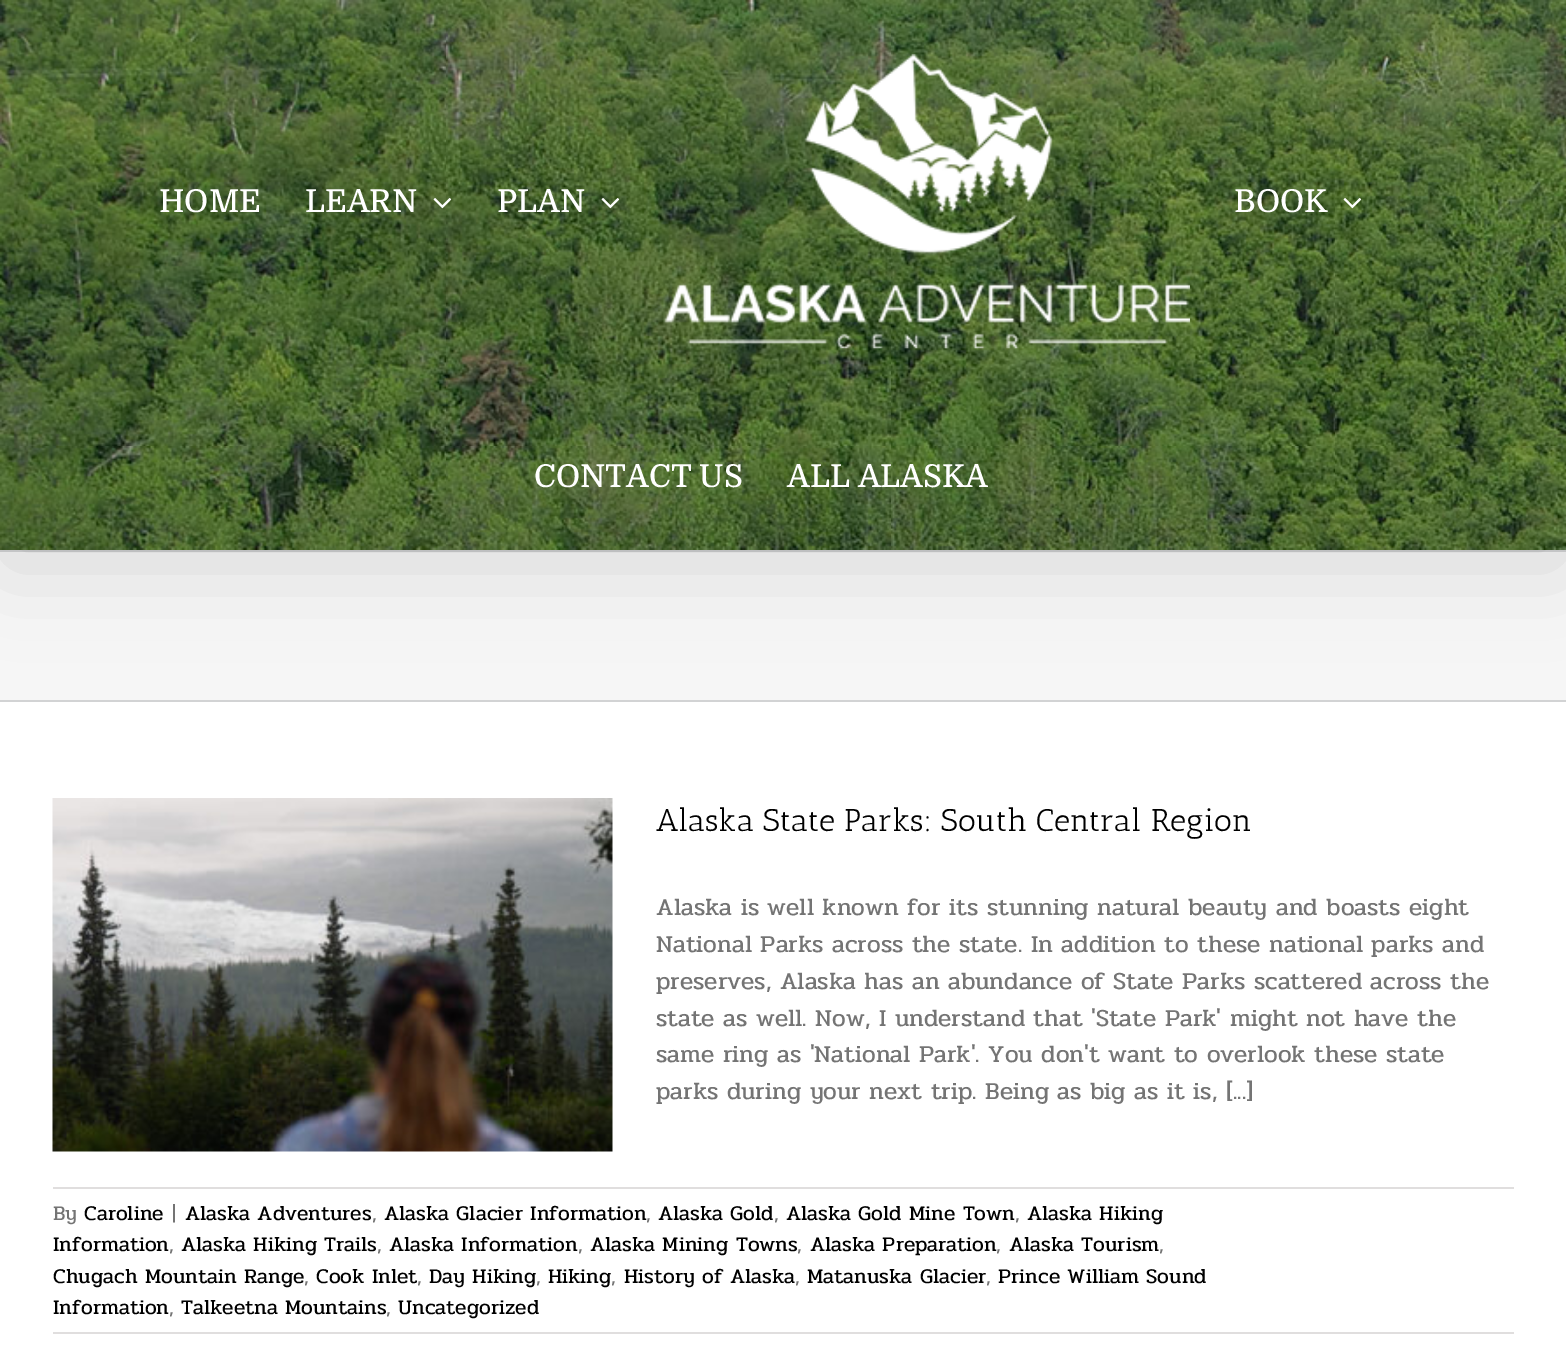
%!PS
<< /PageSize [1566 1367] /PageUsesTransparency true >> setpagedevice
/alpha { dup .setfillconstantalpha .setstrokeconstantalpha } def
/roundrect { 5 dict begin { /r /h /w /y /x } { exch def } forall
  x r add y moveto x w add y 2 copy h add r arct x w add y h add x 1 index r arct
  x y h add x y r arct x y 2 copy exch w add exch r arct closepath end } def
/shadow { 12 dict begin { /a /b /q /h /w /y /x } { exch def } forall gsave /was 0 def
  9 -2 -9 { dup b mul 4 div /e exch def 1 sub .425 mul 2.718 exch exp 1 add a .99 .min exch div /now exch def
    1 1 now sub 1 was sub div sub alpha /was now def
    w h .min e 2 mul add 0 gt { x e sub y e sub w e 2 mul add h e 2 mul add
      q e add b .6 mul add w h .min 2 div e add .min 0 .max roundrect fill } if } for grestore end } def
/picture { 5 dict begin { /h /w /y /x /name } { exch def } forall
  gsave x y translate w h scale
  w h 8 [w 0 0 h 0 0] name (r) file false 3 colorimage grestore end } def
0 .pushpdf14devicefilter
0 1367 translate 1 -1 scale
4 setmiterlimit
1 setgray
0 0 1566 1367 rectfill
0.965 setgray
0 552 1566 148 rectfill
0.824 0.827 0.831 setrgbcolor
0 550 1566 2 rectfill
0 setgray
4 21 1559 543 0 44 0.14 shadow
(img1.rgb) 0 0 1566 550 picture
/Domine-Medium [31.5 0 0 -31.5 0 0] selectfont
1 setgray
159 212 moveto (HOME) show
305 212 moveto (LEARN) show
(img2.rgb) 433 198 19 11 picture
497 212 moveto (PLAN) show
(img3.rgb) 601 198 19 11 picture
(img4.rgb) 664 54 526 295 picture
1234 212 moveto (BOOK) show
(img5.rgb) 1343 198 19 11 picture
534 487 moveto (CONTACT US) show
787 487 moveto (ALL ALASKA) show
0.824 0.827 0.831 setrgbcolor
0 700 1566 2 rectfill
(img6.rgb) 52 798 561 354 picture
/AnticSlab-Regular [31.5 0 0 -31.5 0 0] selectfont
0 setgray
656 831 moveto (Alaska State Parks: South Central Region) show
/Pridi-Regular [24.5 0 0 -24.5 0 0] selectfont
0.455 setgray
656 915 moveto (Alaska is well known for its stunning natural beauty and boasts eight) show
656 952 moveto (National Parks across the state. In addition to these national parks and) show
656 989 moveto (preserves, Alaska has an abundance of State Parks scattered across the) show
656 1026 moveto (state as well. Now, I understand that 'State Park' might not have the) show
656 1062 moveto (same ring as 'National Park'. You don't want to overlook these state) show
656 1099 moveto (parks during your next trip. Being as big as it is, [...]) show
0.878 0.871 0.871 setrgbcolor
53 1187 1461 2 rectfill
53 1332 1461 2 rectfill
/Pridi-Regular [21 0 0 -21 0 0] selectfont
0.455 setgray
53 1220 moveto (By) show
0 setgray
84 1220 moveto (Caroline) show
0.455 setgray
172 1220 moveto (|) show
0 setgray
185 1220 moveto (Alaska Adventures) show
0.455 setgray
372 1220 moveto (,) show
0 setgray
384 1220 moveto (Alaska Glacier Information) show
0.455 setgray
646 1220 moveto (,) show
0 setgray
658 1220 moveto (Alaska Gold) show
0.455 setgray
774 1220 moveto (,) show
0 setgray
786 1220 moveto (Alaska Gold Mine Town) show
0.455 setgray
1015 1220 moveto (,) show
0 setgray
1027 1220 moveto (Alaska Hiking) show
53 1251 moveto (Information) show
0.455 setgray
169 1251 moveto (,) show
0 setgray
181 1251 moveto (Alaska Hiking Trails) show
0.455 setgray
377 1251 moveto (,) show
0 setgray
389 1251 moveto (Alaska Information) show
0.455 setgray
578 1251 moveto (,) show
0 setgray
590 1251 moveto (Alaska Mining Towns) show
0.455 setgray
797 1251 moveto (,) show
0 setgray
810 1251 moveto (Alaska Preparation) show
0.455 setgray
996 1251 moveto (,) show
0 setgray
1009 1251 moveto (Alaska Tourism) show
0.455 setgray
1159 1251 moveto (,) show
0 setgray
53 1283 moveto (Chugach Mountain Range) show
0.455 setgray
304 1283 moveto (,) show
0 setgray
316 1283 moveto (Cook Inlet) show
0.455 setgray
417 1283 moveto (,) show
0 setgray
429 1283 moveto (Day Hiking) show
0.455 setgray
536 1283 moveto (,) show
0 setgray
548 1283 moveto (Hiking) show
0.455 setgray
611 1283 moveto (,) show
0 setgray
624 1283 moveto (History of Alaska) show
0.455 setgray
795 1283 moveto (,) show
0 setgray
807 1283 moveto (Matanuska Glacier) show
0.455 setgray
986 1283 moveto (,) show
0 setgray
998 1283 moveto (Prince William Sound) show
53 1314 moveto (Information) show
0.455 setgray
169 1314 moveto (,) show
0 setgray
181 1314 moveto (Talkeetna Mountains) show
0.455 setgray
386 1314 moveto (,) show
0 setgray
398 1314 moveto (Uncategorized) show
.poppdf14devicefilter showpage
